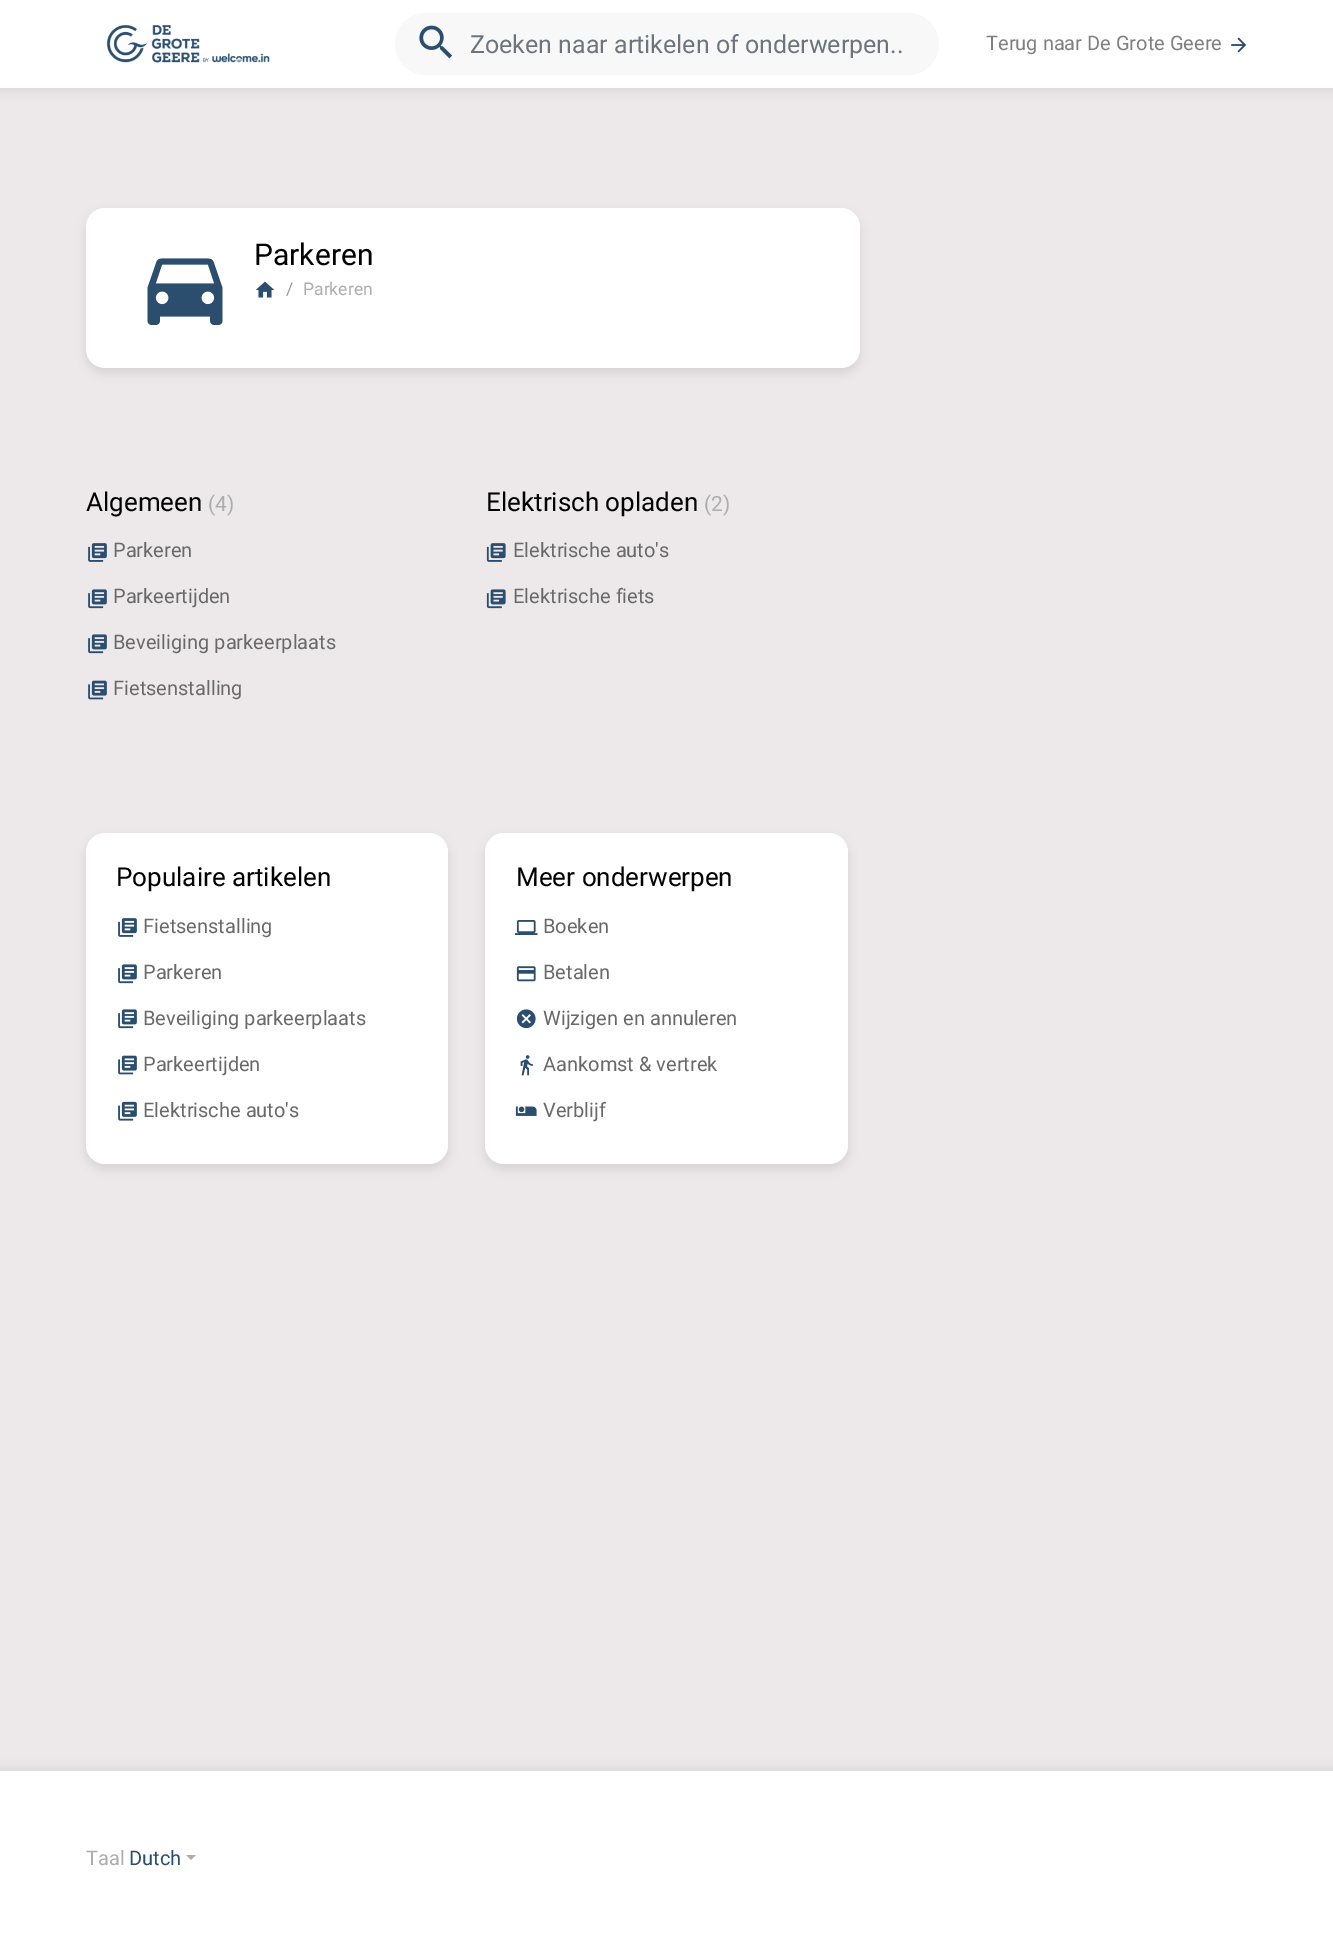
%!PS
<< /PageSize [1333 1946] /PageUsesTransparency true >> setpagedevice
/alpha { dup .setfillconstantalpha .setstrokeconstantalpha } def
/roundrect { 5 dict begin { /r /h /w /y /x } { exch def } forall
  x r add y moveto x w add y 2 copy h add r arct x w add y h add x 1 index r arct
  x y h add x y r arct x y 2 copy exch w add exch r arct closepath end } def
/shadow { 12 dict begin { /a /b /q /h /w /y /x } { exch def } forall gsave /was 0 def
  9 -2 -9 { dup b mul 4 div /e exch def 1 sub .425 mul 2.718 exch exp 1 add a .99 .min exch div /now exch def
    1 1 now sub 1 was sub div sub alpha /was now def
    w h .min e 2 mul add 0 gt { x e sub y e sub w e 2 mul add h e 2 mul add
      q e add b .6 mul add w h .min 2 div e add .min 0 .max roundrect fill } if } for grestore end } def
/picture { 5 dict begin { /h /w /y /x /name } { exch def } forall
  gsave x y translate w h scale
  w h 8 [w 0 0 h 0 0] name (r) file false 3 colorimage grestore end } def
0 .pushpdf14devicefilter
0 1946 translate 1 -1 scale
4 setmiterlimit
0.929 0.914 0.922 setrgbcolor
0 0 1333 1946 rectfill
0 setgray
-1 -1 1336 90 0 6 0.1 shadow
1 setgray
0 0 1333 88 rectfill
(img1.rgb) 106 25 164 38 picture
0.973 setgray
395 13 544 62 31 roundrect fill
(img2.rgb) 419 25 34 34 picture
/Roboto-Regular [25 0 0 -25 0 0] selectfont
0.424 0.459 0.49 setrgbcolor
470 53 moveto (Zoeken naar artikelen of onderwerpen..) show
/Roboto-Regular [20 0 0 -20 0 0] selectfont
0.502 setgray
986 50 moveto (Terug naar De Grote Geere) show
(img3.rgb) 1231 37 16 16 picture
0 setgray
86 213 774 160 19 5 0.1 shadow
1 setgray
86 208 774 160 19 roundrect fill
(img4.rgb) 147 258 76 67 picture
/Roboto-Regular [30 0 0 -30 0 0] selectfont
0 setgray
254 265 moveto (Parkeren) show
(img5.rgb) 255 281 20 17 picture
/Roboto-Regular [17.5 0 0 -17.5 0 0] selectfont
0.6 setgray
286 295 moveto (/) show
0.678 setgray
303 295 moveto (Parkeren) show
/Roboto-Regular [26 0 0 -26 0 0] selectfont
0 setgray
86 511 moveto (Algemeen) show
/Roboto-Regular [21 0 0 -21 0 0] selectfont
0.678 setgray
208 511 moveto (\(4\)) show
(img6.rgb) 88 543 19 19 picture
/Roboto-Regular [20 0 0 -20 0 0] selectfont
0.412 setgray
113 557 moveto (Parkeren) show
(img7.rgb) 88 589 19 20 picture
113 603 moveto (Parkeertijden) show
(img7.rgb) 88 634 19 20 picture
113 649 moveto (Beveiliging parkeerplaats) show
(img8.rgb) 88 680 19 20 picture
113 695 moveto (Fietsenstalling) show
/Roboto-Regular [26 0 0 -26 0 0] selectfont
0 setgray
486 511 moveto (Elektrisch opladen) show
/Roboto-Regular [21 0 0 -21 0 0] selectfont
0.678 setgray
704 511 moveto (\(2\)) show
(img9.rgb) 486 543 20 19 picture
/Roboto-Regular [20 0 0 -20 0 0] selectfont
0.412 setgray
513 557 moveto (Elektrische auto's) show
(img10.rgb) 486 589 20 20 picture
513 603 moveto (Elektrische fiets) show
0 setgray
86 838 362 331 19 5 0.1 shadow
1 setgray
86 833 362 331 19 roundrect fill
/Roboto-Regular [26 0 0 -26 0 0] selectfont
0 setgray
116 886 moveto (Populaire artikelen) show
(img11.rgb) 118 918 19 19 picture
/Roboto-Regular [20 0 0 -20 0 0] selectfont
0.412 setgray
143 933 moveto (Fietsenstalling) show
(img12.rgb) 118 964 19 20 picture
143 979 moveto (Parkeren) show
(img12.rgb) 118 1009 19 20 picture
143 1025 moveto (Beveiliging parkeerplaats) show
(img13.rgb) 118 1055 19 20 picture
143 1071 moveto (Parkeertijden) show
(img14.rgb) 118 1101 19 20 picture
143 1117 moveto (Elektrische auto's) show
0 setgray
485 838 363 331 19 5 0.1 shadow
1 setgray
485 833 363 331 19 roundrect fill
/Roboto-Regular [26 0 0 -26 0 0] selectfont
0 setgray
516 886 moveto (Meer onderwerpen) show
(img15.rgb) 515 920 23 15 picture
/Roboto-Regular [20 0 0 -20 0 0] selectfont
0.412 setgray
543 933 moveto (Boeken) show
(img16.rgb) 516 966 20 16 picture
543 979 moveto (Betalen) show
(img17.rgb) 516 1009 20 20 picture
543 1025 moveto (Wijzigen en annuleren) show
(img18.rgb) 520 1055 13 21 picture
543 1071 moveto (Aankomst & vertrek) show
(img19.rgb) 515 1106 22 10 picture
543 1117 moveto (Verblijf) show
0 setgray
-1 1770 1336 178 0 6 0.1 shadow
1 setgray
0 1771 1333 175 rectfill
0.678 setgray
86 1865 moveto (Taal) show
0.161 0.302 0.431 setrgbcolor
129 1865 moveto (Dutch) show
0.678 setgray
newpath 186 1855 moveto 196 1855 lineto 191 1860 lineto closepath fill
.poppdf14devicefilter showpage
